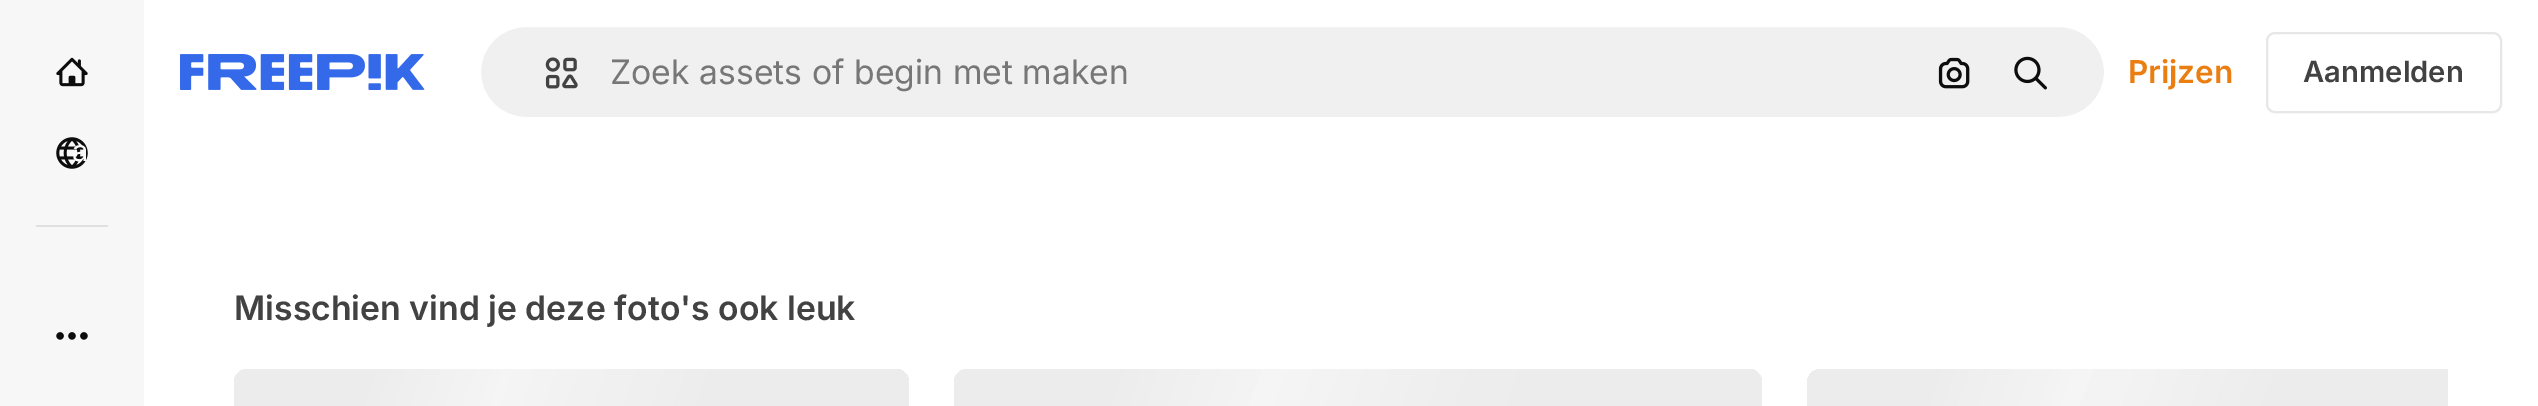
%!PS
<< /PageSize [2538 406] >> setpagedevice
/roundrect { 5 dict begin { /r /h /w /y /x } { exch def } forall
  x r add y moveto x w add y 2 copy h add r arct x w add y h add x 1 index r arct
  x y h add x y r arct x y 2 copy exch w add exch r arct closepath end } def
/picture { 5 dict begin { /h /w /y /x /name } { exch def } forall
  gsave x y translate w h scale
  w h 8 [w 0 0 h 0 0] name (r) file false 3 colorimage grestore end } def
0 406 translate 1 -1 scale
4 setmiterlimit
1 setgray
0 0 2538 406 rectfill
0.969 setgray
0 0 144 406 rectfill
(img2.rgb) 56 137 32 32 picture
/Inter-Regular [29 0 0 -29 0 0] selectfont
0.988 setgray
72 161 moveto (a) show
(img1.rgb) 56 57 32 30 picture
0.878 setgray
36 225 72 2 rectfill
(img3.rgb) 56 332 32 8 picture
(img4.rgb) 180 54 245 36 picture
0.941 setgray
480 26 1625 92 46 roundrect gsave fill grestore
1 setgray
2 setlinewidth
stroke
(img5.rgb) 545 57 33 32 picture
/Inter-Regular [33.75 0 0 -33.75 0 0] selectfont
0.467 setgray
610 84 moveto (Zoek assets of begin met maken) show
(img6.rgb) 1938 57 32 32 picture
(img7.rgb) 2014 56 33 34 picture
/Inter-SemiBold [31.5 0 0 -31.5 0 0] selectfont
0.918 0.494 0.067 setrgbcolor
2128 83 moveto (Prijzen) show
0.906 setgray
2267 33 234 79 8 roundrect stroke
/Inter-SemiBold [29.25 0 0 -29.25 0 0] selectfont
0.259 setgray
2303 82 moveto (Aanmelden) show
/Inter-SemiBold [33.75 0 0 -33.75 0 0] selectfont
234 320 moveto (Misschien vind je deze foto's ook leuk) show
gsave 234 369 675 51 14 roundrect clip newpath
<< /ShadingType 2 /ColorSpace /DeviceRGB /Coords [241 351 1577 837] /Extend [true true] /Function << /FunctionType 3 /Domain [0 1] /Functions [<< /FunctionType 2 /Domain [0 1] /C0 [0.925 0.925 0.925] /C1 [0.925 0.925 0.925] /N 1 >> << /FunctionType 2 /Domain [0 1] /C0 [0.925 0.925 0.925] /C1 [0.961 0.961 0.961] /N 1 >> << /FunctionType 2 /Domain [0 1] /C0 [0.961 0.961 0.961] /C1 [0.925 0.925 0.925] /N 1 >> << /FunctionType 2 /Domain [0 1] /C0 [0.925 0.925 0.925] /C1 [0.925 0.925 0.925] /N 1 >>] /Bounds [0.08 0.18 0.33] /Encode [0 1 0 1 0 1 0 1] >> >> shfill grestore
gsave 954 369 808 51 14 roundrect clip newpath
<< /ShadingType 2 /ColorSpace /DeviceRGB /Coords [976 308 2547 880] /Extend [true true] /Function << /FunctionType 3 /Domain [0 1] /Functions [<< /FunctionType 2 /Domain [0 1] /C0 [0.925 0.925 0.925] /C1 [0.925 0.925 0.925] /N 1 >> << /FunctionType 2 /Domain [0 1] /C0 [0.925 0.925 0.925] /C1 [0.961 0.961 0.961] /N 1 >> << /FunctionType 2 /Domain [0 1] /C0 [0.961 0.961 0.961] /C1 [0.925 0.925 0.925] /N 1 >> << /FunctionType 2 /Domain [0 1] /C0 [0.925 0.925 0.925] /C1 [0.925 0.925 0.925] /N 1 >>] /Bounds [0.08 0.18 0.33] /Encode [0 1 0 1 0 1 0 1] >> >> shfill grestore
gsave newpath 1821 369 moveto 2448 369 lineto 2448 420 lineto 1821 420 lineto 1813.5 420 1807 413.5 1807 406 curveto 1807 383 lineto 1807 375.5 1813.5 369 1821 369 curveto closepath clip newpath
<< /ShadingType 2 /ColorSpace /DeviceRGB /Coords [1813 351 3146 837] /Extend [true true] /Function << /FunctionType 3 /Domain [0 1] /Functions [<< /FunctionType 2 /Domain [0 1] /C0 [0.925 0.925 0.925] /C1 [0.925 0.925 0.925] /N 1 >> << /FunctionType 2 /Domain [0 1] /C0 [0.925 0.925 0.925] /C1 [0.961 0.961 0.961] /N 1 >> << /FunctionType 2 /Domain [0 1] /C0 [0.961 0.961 0.961] /C1 [0.925 0.925 0.925] /N 1 >> << /FunctionType 2 /Domain [0 1] /C0 [0.925 0.925 0.925] /C1 [0.925 0.925 0.925] /N 1 >>] /Bounds [0.08 0.18 0.33] /Encode [0 1 0 1 0 1 0 1] >> >> shfill grestore
showpage
